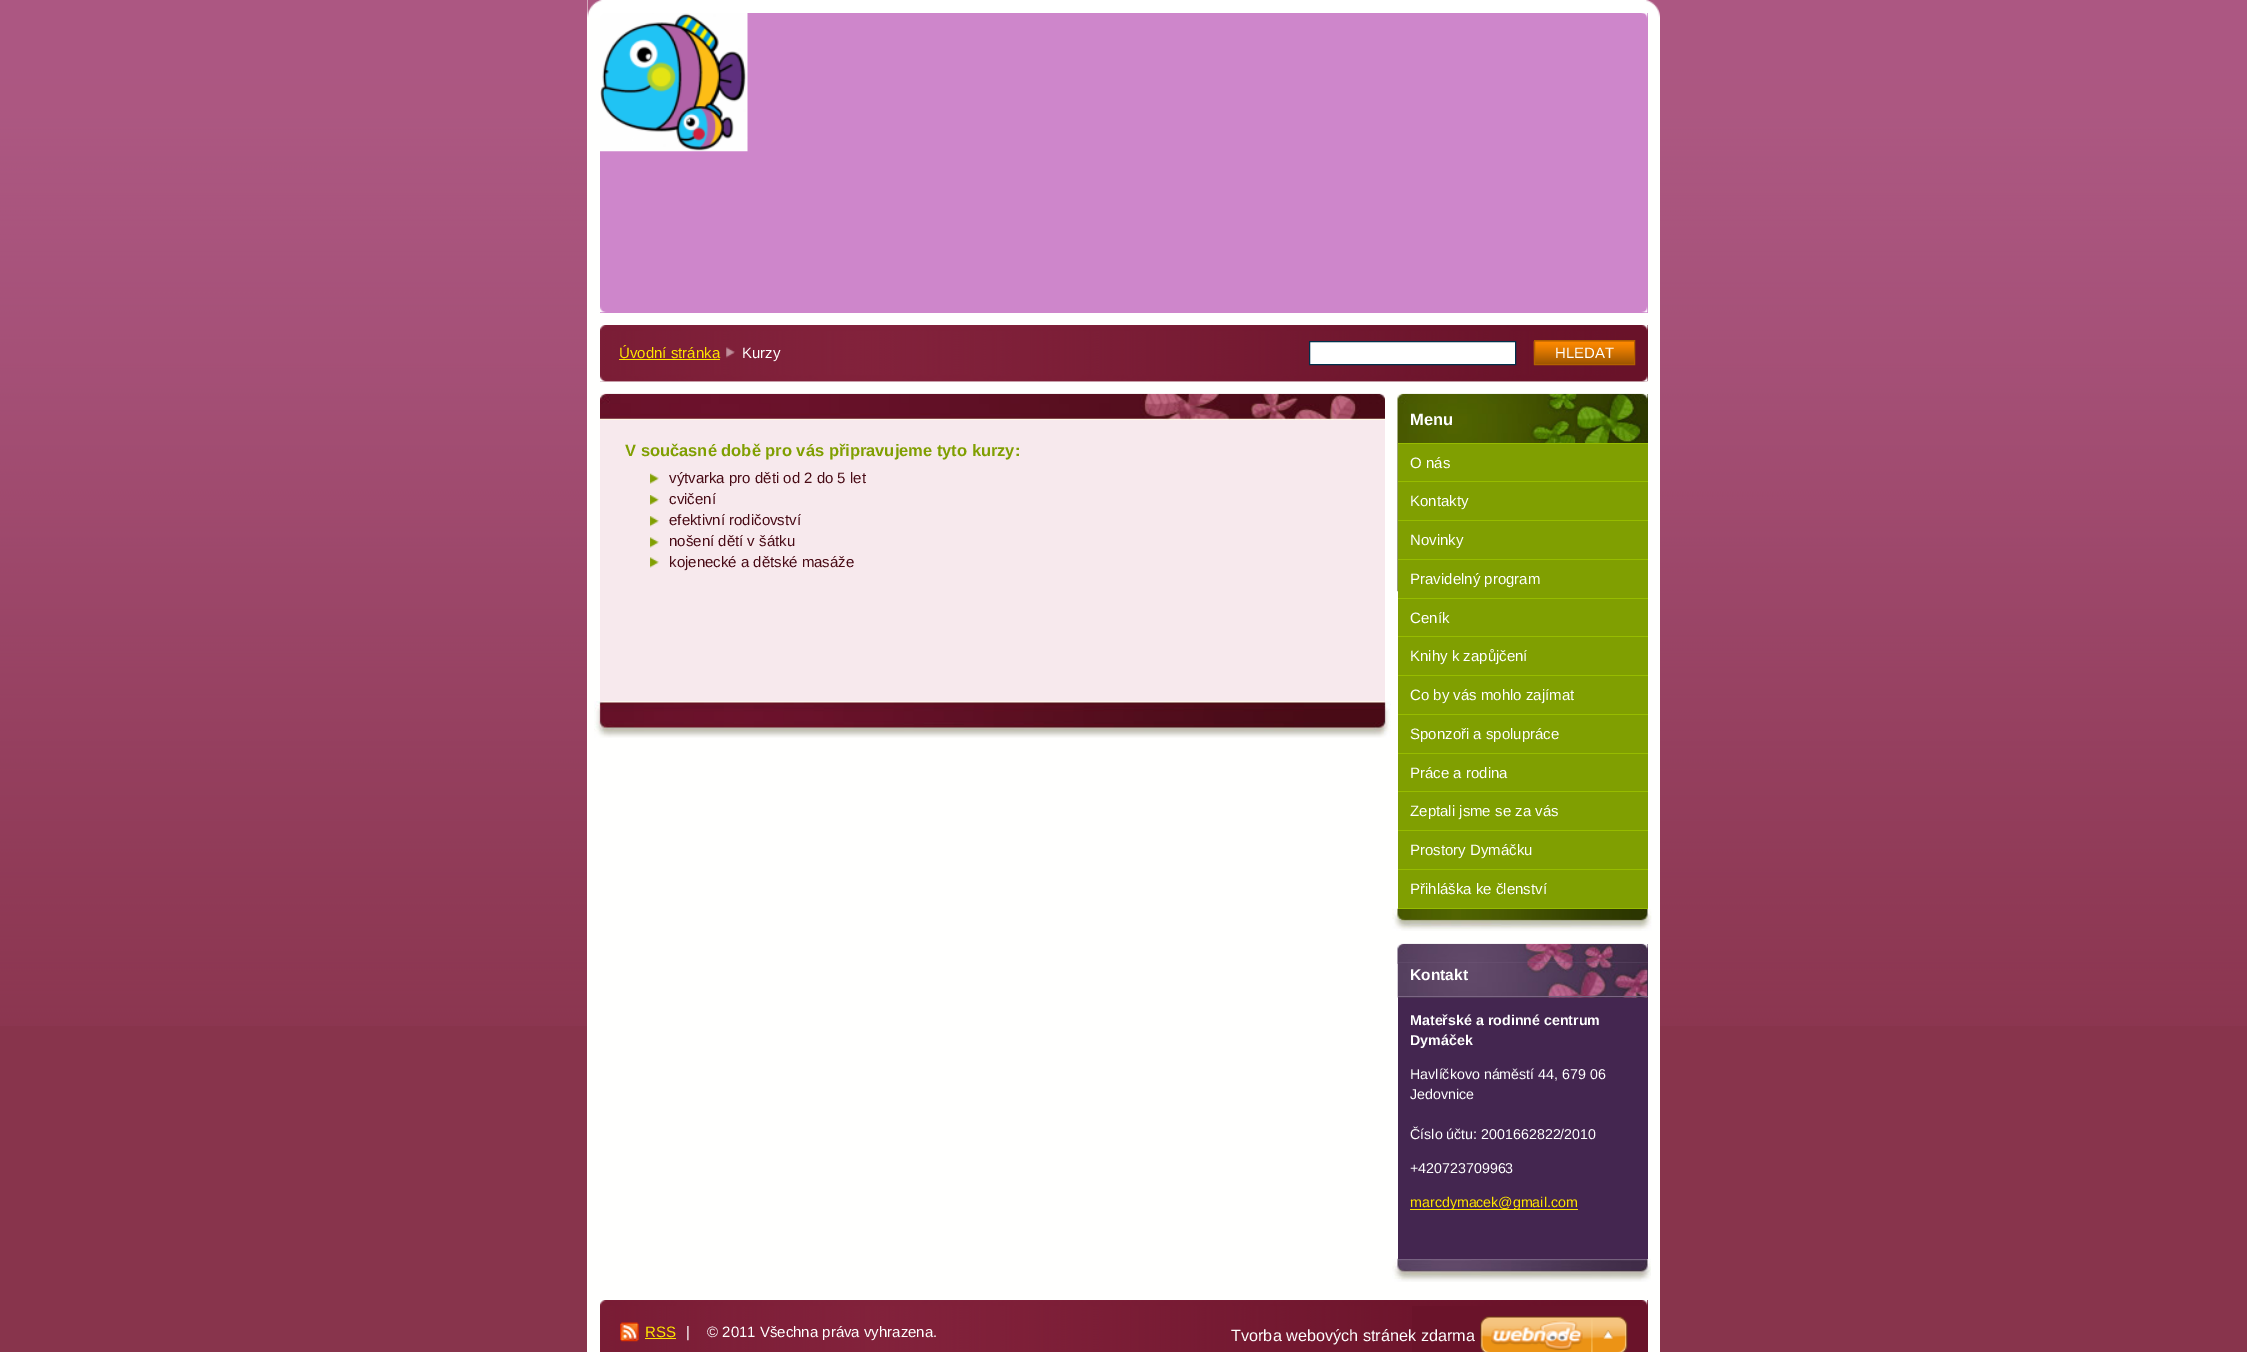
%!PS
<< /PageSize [2247 1352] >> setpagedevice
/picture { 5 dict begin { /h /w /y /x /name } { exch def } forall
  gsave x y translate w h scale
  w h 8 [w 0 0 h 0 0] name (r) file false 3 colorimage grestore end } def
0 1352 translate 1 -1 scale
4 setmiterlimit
0.533 0.204 0.298 setrgbcolor
0 0 2247 1352 rectfill
(img1.rgb) 0 0 2247 1026 picture
1 1 0.996 setrgbcolor
587 0 1073 1352 rectfill
(img2.rgb) 587 0 1073 18 picture
0.808 0.525 0.796 setrgbcolor
600 13 1048 300 rectfill
(img3.rgb) 600 13 148 139 picture
(img4.rgb) 600 13 1048 300 picture
0.416 0.075 0.165 setrgbcolor
1647 325 1 56 rectfill
(img5.rgb) 600 325 1048 57 picture
(img6.rgb) 600 375 1048 7 picture
(img7.rgb) 600 325 1048 6 picture
/LiberationSans-Regular [15 0 0 -15 0 0] selectfont
1 0.894 0 setrgbcolor
619 358 moveto (Úvodní stránka) show
619 359 101 1 rectfill
(img8.rgb) 726 347 9 11 picture
1 setgray
742 358 moveto (Kurzy) show
newpath 1309.5 341.5 moveto 1515.5 341.5 lineto 1515.5 364.5 lineto 1309.5 364.5 lineto closepath gsave fill grestore
0 0.192 0.298 setrgbcolor
stroke
(img9.rgb) 1533 341 101 24 picture
0.698 0.376 0 setrgbcolor
1534.5 340.5 100 24 rectstroke
1 setgray
1555 358 moveto (HLEDAT) show
(img10.rgb) 594 701 797 37 picture
0.969 0.914 0.929 setrgbcolor
600 420 785 281 rectfill
(img11.rgb) 600 393 785 27 picture
/LiberationSans-Bold [16.5 0 0 -16.5 0 0] selectfont
0.502 0.624 0.004 setrgbcolor
625 456 moveto (V současné době pro vás připravujeme tyto kurzy:) show
(img12.rgb) 650 473 9 11 picture
/LiberationSans-Regular [15 0 0 -15 0 0] selectfont
0.286 0.043 0.086 setrgbcolor
669 483 moveto (výtvarka pro děti od 2 do 5 let) show
(img13.rgb) 650 495 9 10 picture
669 504 moveto (cvičení) show
(img14.rgb) 650 516 9 11 picture
669 525 moveto (efektivní rodičovství) show
(img15.rgb) 650 537 9 11 picture
669 546 moveto (nošení dětí v šátku) show
(img15.rgb) 650 557 9 11 picture
669 567 moveto (kojenecké a dětské masáže) show
(img16.rgb) 1392 908 260 23 picture
0.169 0.208 0 setrgbcolor
1647 394 1 49 rectfill
(img17.rgb) 1397 393 251 199 picture
/LiberationSans-Bold [16.5 0 0 -16.5 0 0] selectfont
1 setgray
1410 425 moveto (Menu) show
0.502 0.624 0.004 setrgbcolor
1398 444 250 464 rectfill
0.592 0.737 0 setrgbcolor
1398 443 250 1 rectfill
1398 481 250 1 rectfill
/LiberationSans-Regular [15 0 0 -15 0 0] selectfont
1 setgray
1410 468 moveto (O nás) show
0.592 0.737 0 setrgbcolor
1398 520 250 1 rectfill
1 setgray
1410 506 moveto (Kontakty) show
0.592 0.737 0 setrgbcolor
1398 559 250 1 rectfill
1 setgray
1410 545 moveto (Novinky) show
0.592 0.737 0 setrgbcolor
1398 598 250 1 rectfill
1 setgray
1410 584 moveto (Pravidelný program) show
0.592 0.737 0 setrgbcolor
1398 636 250 1 rectfill
1 setgray
1410 623 moveto (Ceník) show
0.592 0.737 0 setrgbcolor
1398 675 250 1 rectfill
1 setgray
1410 661 moveto (Knihy k zapůjčení) show
0.592 0.737 0 setrgbcolor
1398 714 250 1 rectfill
1 setgray
1410 700 moveto (Co by vás mohlo zajímat) show
0.592 0.737 0 setrgbcolor
1398 753 250 1 rectfill
1 setgray
1410 739 moveto (Sponzoři a spolupráce) show
0.592 0.737 0 setrgbcolor
1398 791 250 1 rectfill
1 setgray
1410 778 moveto (Práce a rodina) show
0.592 0.737 0 setrgbcolor
1398 830 250 1 rectfill
1 setgray
1410 816 moveto (Zeptali jsme se za vás) show
0.592 0.737 0 setrgbcolor
1398 869 250 1 rectfill
1 setgray
1410 855 moveto (Prostory Dymáčku) show
0.592 0.737 0 setrgbcolor
1398 908 250 1 rectfill
1 setgray
1410 894 moveto (Přihláška ke členství) show
(img18.rgb) 1392 1258 259 24 picture
0.267 0.149 0.314 setrgbcolor
1398 944 250 315 rectfill
(img19.rgb) 1397 943 251 21 picture
0.255 0.169 0.286 setrgbcolor
1398 963 250 35 rectfill
(img20.rgb) 1397 962 251 36 picture
0.482 0.396 0.518 setrgbcolor
1398 996 250 1 rectfill
/LiberationSans-Bold [15.5 0 0 -15.5 0 0] selectfont
1 setgray
1410 980 moveto (Kontakt) show
/LiberationSans-Bold [14.25 0 0 -14.25 0 0] selectfont
1410 1025 moveto (Mateřské a rodinné centrum) show
1410 1045 moveto (Dymáček) show
/LiberationSans-Regular [14.25 0 0 -14.25 0 0] selectfont
1410 1079 moveto (Havlíčkovo náměstí 44, 679 06) show
1410 1099 moveto (Jedovnice) show
1410 1139 moveto (Číslo účtu: 2001662822/2010) show
1410 1173 moveto (+420723709963) show
1 0.894 0 setrgbcolor
1410 1209 66 1 rectfill
1410 1207 moveto (marcdyma) show
1476 1209 102 1 rectfill
1476 1207 moveto (cek@gmail.com) show
0.416 0.075 0.165 setrgbcolor
1412 1300 236 52 rectfill
(img21.rgb) 600 1306 812 46 picture
(img22.rgb) 600 1300 1048 6 picture
(img23.rgb) 620 1322 19 20 picture
/LiberationSans-Regular [15 0 0 -15 0 0] selectfont
1 0.894 0 setrgbcolor
645 1337 moveto (RSS) show
645 1338 31 1 rectfill
1 setgray
686 1337 moveto (|) show
707 1337 moveto (© 2011 Všechna práva vyhrazena.) show
/LiberationSans-Regular [16.25 0 0 -16.25 0 0] selectfont
1231 1341 moveto (Tvorba webových stránek zdarma) show
(img24.rgb) 1480 1316 148 36 picture
showpage
